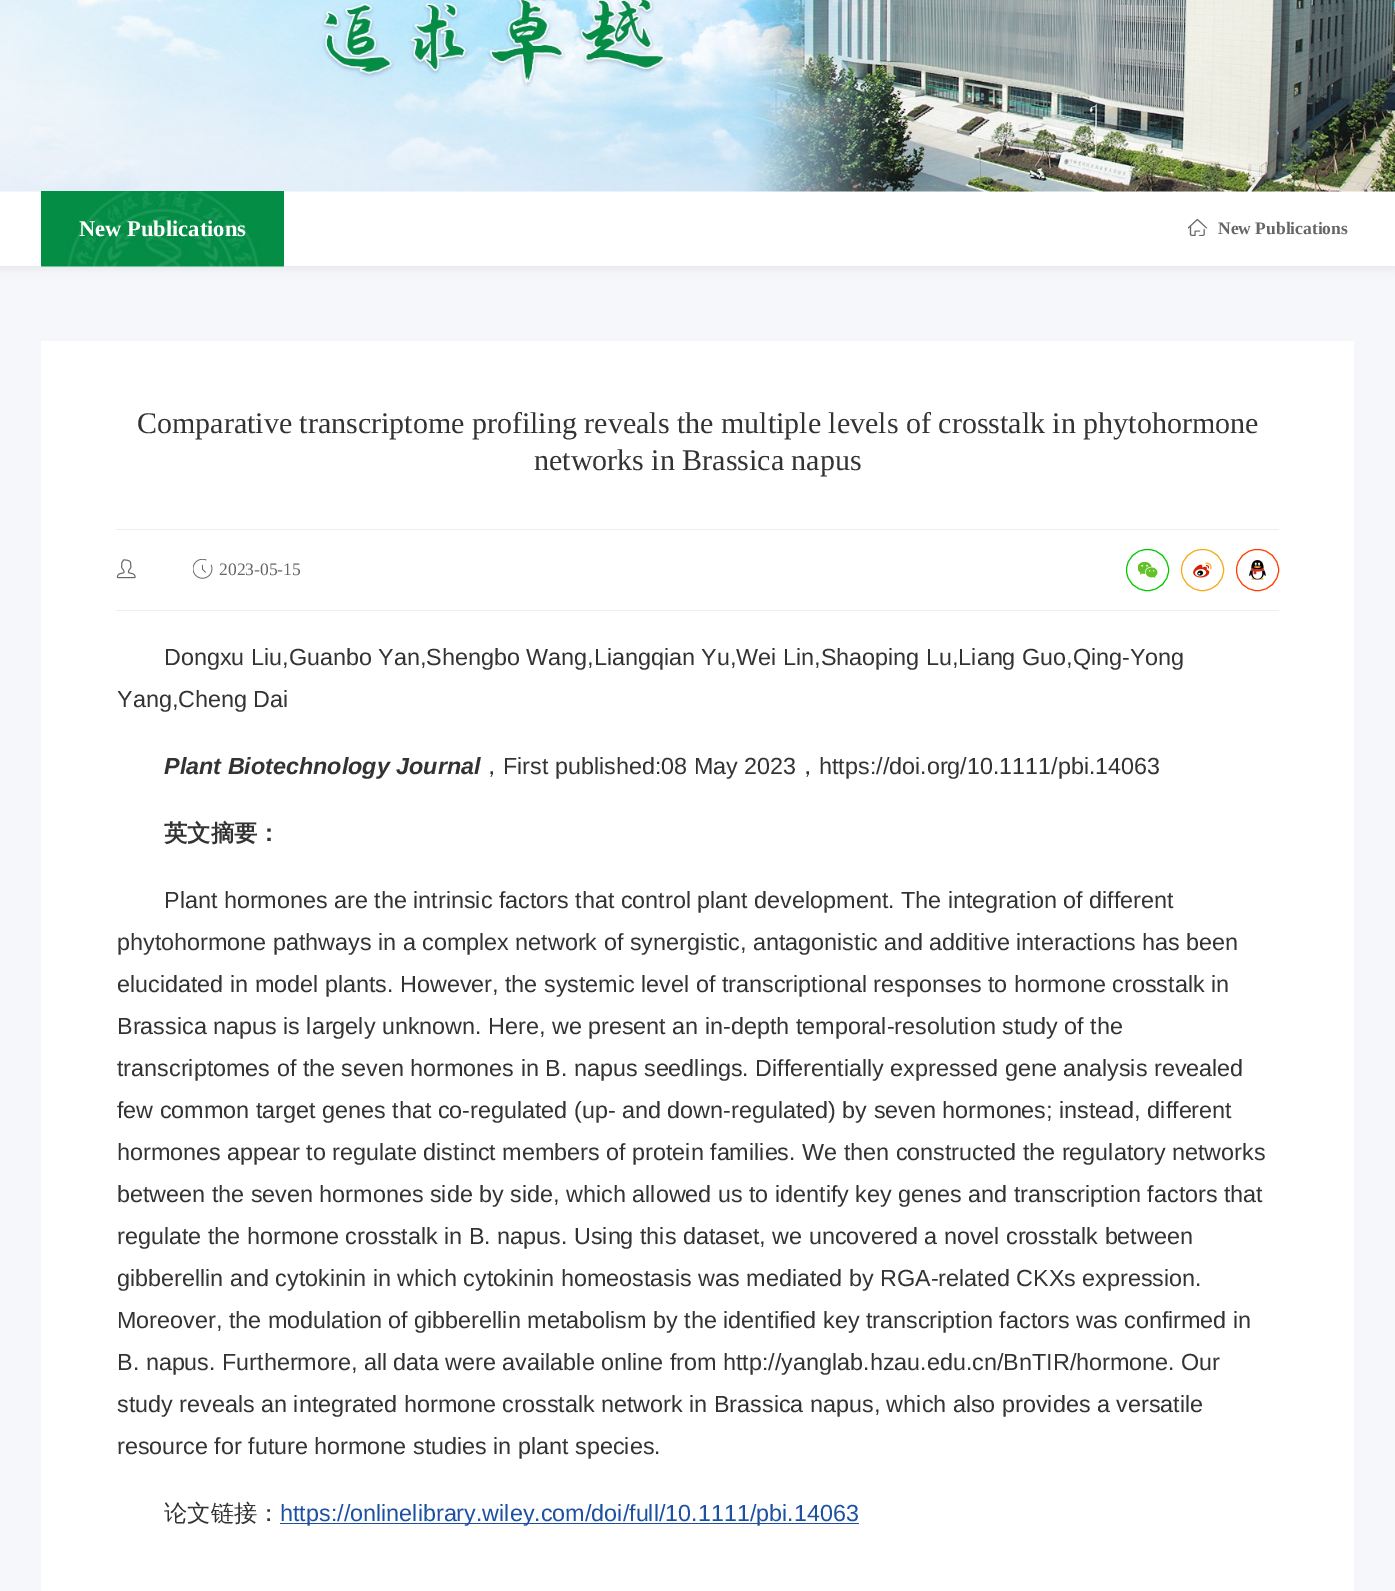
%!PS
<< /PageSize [1395 1591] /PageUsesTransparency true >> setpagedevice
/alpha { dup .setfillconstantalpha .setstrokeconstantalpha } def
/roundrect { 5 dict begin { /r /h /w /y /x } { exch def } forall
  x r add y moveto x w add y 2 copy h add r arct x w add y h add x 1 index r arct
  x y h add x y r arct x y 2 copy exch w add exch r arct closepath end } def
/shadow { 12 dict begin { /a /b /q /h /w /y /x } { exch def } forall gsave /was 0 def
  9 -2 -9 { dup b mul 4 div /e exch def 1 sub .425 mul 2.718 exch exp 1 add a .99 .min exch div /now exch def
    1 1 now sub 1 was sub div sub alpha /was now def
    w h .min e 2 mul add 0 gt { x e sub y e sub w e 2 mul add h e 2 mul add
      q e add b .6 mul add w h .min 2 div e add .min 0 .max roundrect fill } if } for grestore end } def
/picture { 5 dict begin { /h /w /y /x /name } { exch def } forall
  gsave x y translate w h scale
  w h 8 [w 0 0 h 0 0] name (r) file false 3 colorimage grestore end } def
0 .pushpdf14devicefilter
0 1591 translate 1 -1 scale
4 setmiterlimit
0.961 0.969 0.98 setrgbcolor
0 0 1395 1591 rectfill
0 setgray
0 191 1395 75 0 6 0.1 shadow
1 setgray
0 191 1395 75 rectfill
(img1.rgb) 0 0 1395 192 picture
0.016 0.557 0.271 setrgbcolor
41 191 243 75 rectfill
(img2.rgb) 41 191 243 76 picture
/LiberationSerif-Bold [22.5 0 0 -22.5 0 0] selectfont
1 setgray
79 236 moveto (New Publications) show
(img3.rgb) 1188 218 20 18 picture
/LiberationSerif-Bold [17.5 0 0 -17.5 0 0] selectfont
0.4 setgray
1218 234 moveto (New Publications) show
1 setgray
41 341 1313 1250 rectfill
/LiberationSerif-Regular [30 0 0 -30 0 0] selectfont
0.2 setgray
137 433 moveto (Comparative transcriptome profiling reveals the multiple levels of crosstalk in phytohormone) show
534 470 moveto (networks in Brassica napus) show
0.933 setgray
116 529 1163 1 rectfill
116 610 1163 1 rectfill
(img4.rgb) 116 559 20 20 picture
(img5.rgb) 193 559 20 20 picture
/LiberationSerif-Regular [17.5 0 0 -17.5 0 0] selectfont
0.4 setgray
219 575 moveto (2023-05-15) show
0 0.784 0 setrgbcolor
1126.5 549.5 42 41 20.5 roundrect stroke
(img6.rgb) 1138 561 20 17 picture
0.961 0.667 0.086 setrgbcolor
1181.5 549.5 42 41 20.5 roundrect stroke
(img7.rgb) 1193 562 19 16 picture
1 0.239 0 setrgbcolor
1236.5 549.5 42 41 20.5 roundrect stroke
(img8.rgb) 1249 560 17 20 picture
/LiberationSans-Regular [23.35 0 0 -23.35 0 0] selectfont
0.2 setgray
164 665 moveto (Dongxu Liu,Guanbo Yan,Shengbo Wang,Liangqian Yu,Wei Lin,Shaoping Lu,Liang Guo,Qing-Yong) show
117 707 moveto (Yang,Cheng Dai) show
/LiberationSans-BoldItalic [23.35 0 0 -23.35 0 0] selectfont
164 774 moveto (Plant Biotechnology Journal) show
/WenQuanYiZenHei-Medium [23.35 0 0 -23.35 0 0] selectfont
480 774 moveto (，) show
/LiberationSans-Regular [23.35 0 0 -23.35 0 0] selectfont
503 774 moveto (First published:08 May 2023) show
/WenQuanYiZenHei-Medium [23.35 0 0 -23.35 0 0] selectfont
796 774 moveto (，) show
/LiberationSans-Regular [23.35 0 0 -23.35 0 0] selectfont
819 774 moveto (https://doi.org/10.1111/pbi.14063) show
/WenQuanYiZenHei-Bold [23.35 0 0 -23.35 0 0] selectfont
164 841 moveto (英文摘要：) show
/LiberationSans-Regular [23.35 0 0 -23.35 0 0] selectfont
164 908 moveto (Plant hormones are the intrinsic factors that control plant development. The integration of different) show
117 950 moveto (phytohormone pathways in a complex network of synergistic, antagonistic and additive interactions has been) show
117 992 moveto (elucidated in model plants. However, the systemic level of transcriptional responses to hormone crosstalk in) show
117 1034 moveto (Brassica napus is largely unknown. Here, we present an in-depth temporal-resolution study of the) show
117 1076 moveto (transcriptomes of the seven hormones in B. napus seedlings. Differentially expressed gene analysis revealed) show
117 1118 moveto (few common target genes that co-regulated \(up- and down-regulated\) by seven hormones; instead, different) show
117 1160 moveto (hormones appear to regulate distinct members of protein families. We then constructed the regulatory networks) show
117 1202 moveto (between the seven hormones side by side, which allowed us to identify key genes and transcription factors that) show
117 1244 moveto (regulate the hormone crosstalk in B. napus. Using this dataset, we uncovered a novel crosstalk between) show
117 1286 moveto (gibberellin and cytokinin in which cytokinin homeostasis was mediated by RGA-related CKXs expression.) show
117 1328 moveto (Moreover, the modulation of gibberellin metabolism by the identified key transcription factors was confirmed in) show
117 1370 moveto (B. napus. Furthermore, all data were available online from http://yanglab.hzau.edu.cn/BnTIR/hormone. Our) show
117 1412 moveto (study reveals an integrated hormone crosstalk network in Brassica napus, which also provides a versatile) show
117 1454 moveto (resource for future hormone studies in plant species.) show
/WenQuanYiZenHei-Medium [23.35 0 0 -23.35 0 0] selectfont
164 1521 moveto (论文链接：) show
0.118 0.314 0.635 setrgbcolor
280 1523 579 1 rectfill
/LiberationSans-Regular [23.35 0 0 -23.35 0 0] selectfont
280 1521 moveto (https://onlinelibrary.wiley.com/doi/full/10.1111/pbi.14063) show
.poppdf14devicefilter showpage
